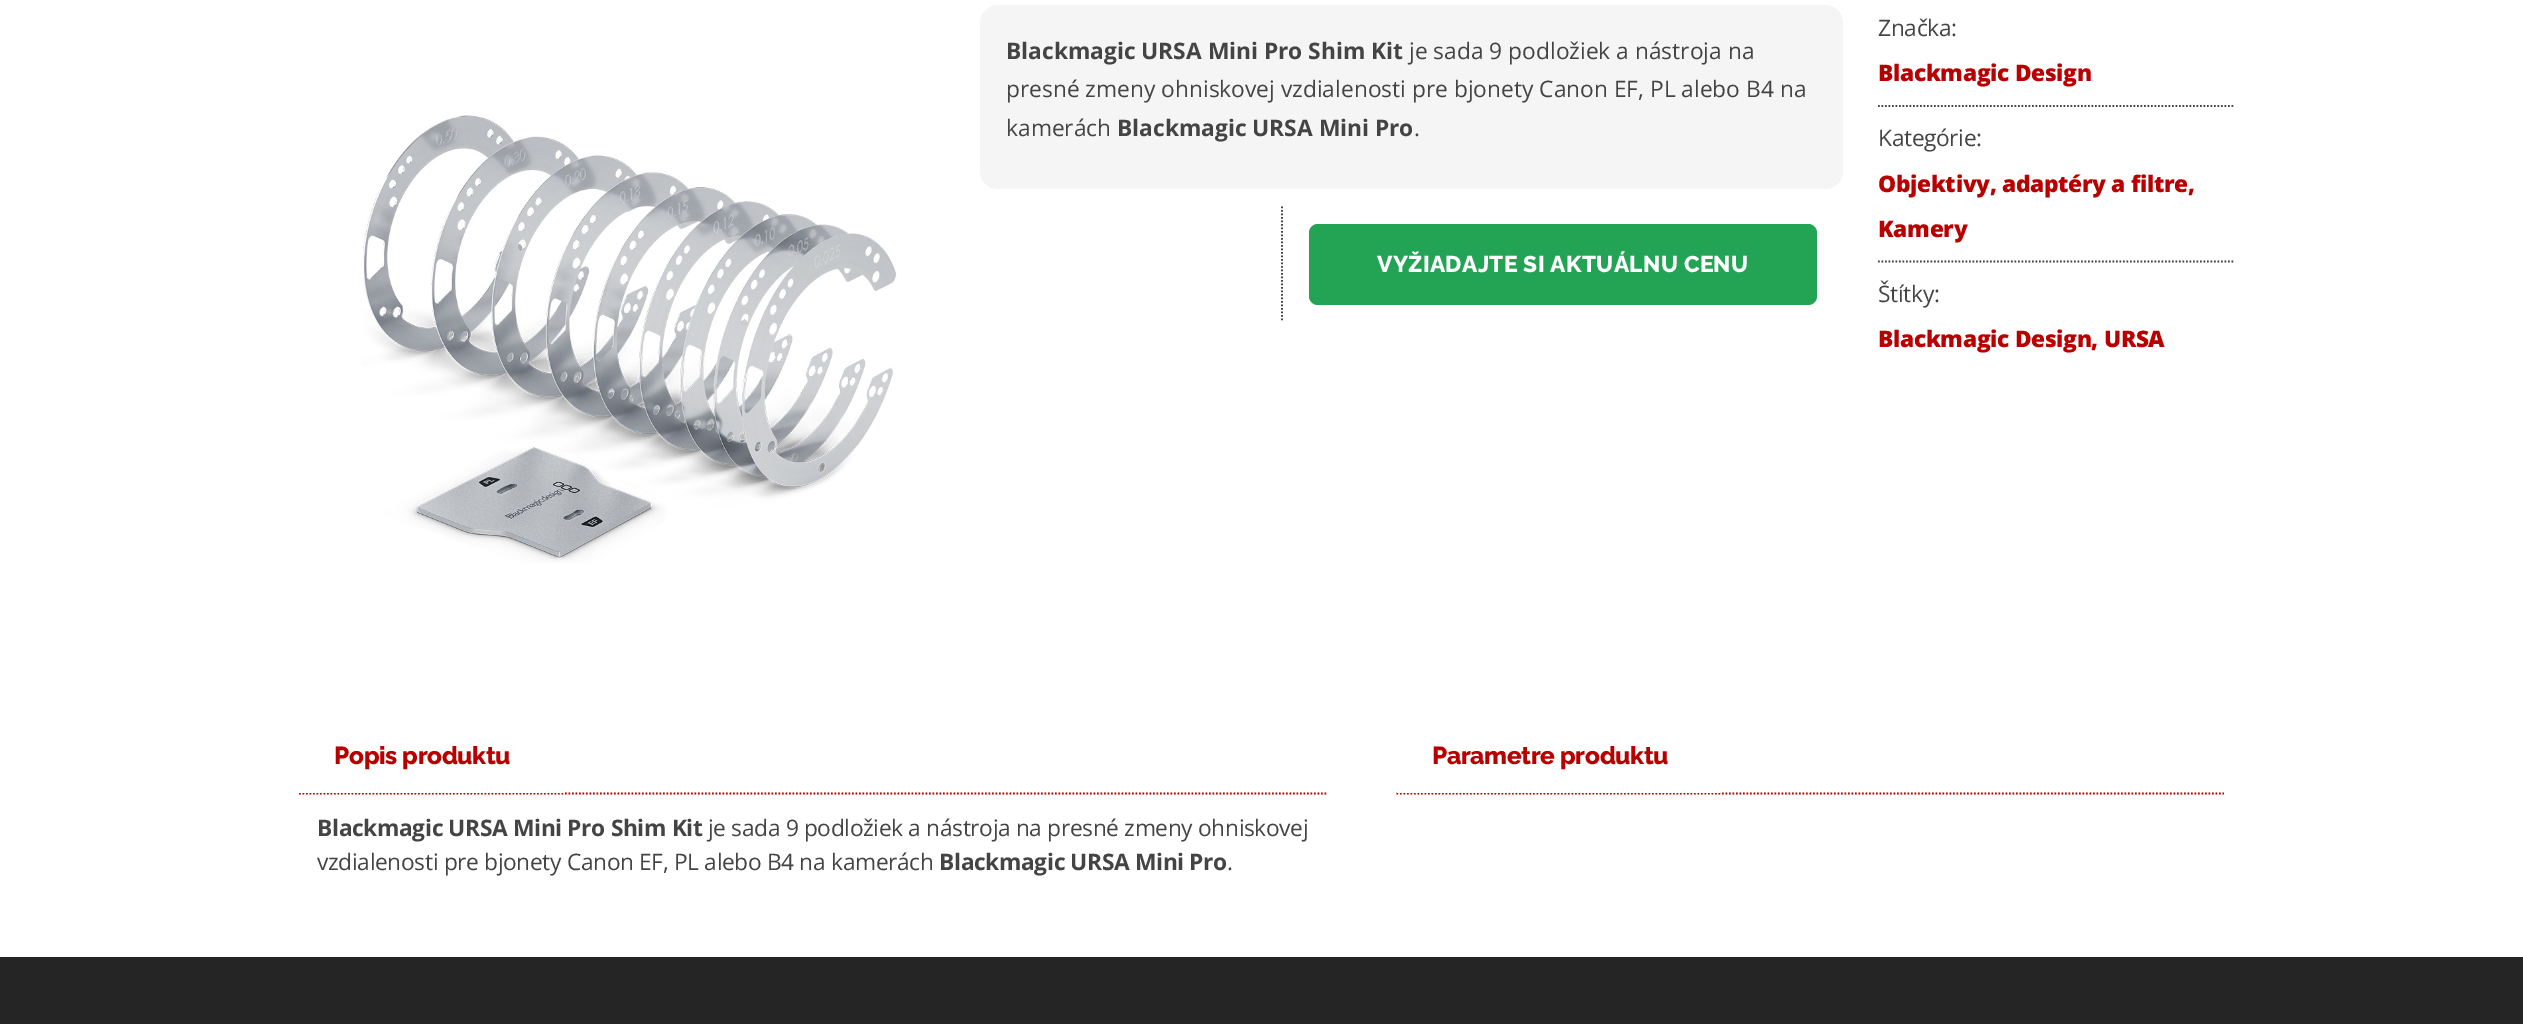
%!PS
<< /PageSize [2523 1024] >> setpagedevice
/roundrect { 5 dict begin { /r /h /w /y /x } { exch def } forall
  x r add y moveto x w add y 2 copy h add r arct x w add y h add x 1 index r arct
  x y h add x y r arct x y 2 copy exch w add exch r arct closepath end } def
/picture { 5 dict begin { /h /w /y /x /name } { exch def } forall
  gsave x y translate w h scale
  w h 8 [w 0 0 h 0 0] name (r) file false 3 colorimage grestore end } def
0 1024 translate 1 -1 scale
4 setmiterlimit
1 setgray
0 0 2523 1024 rectfill
(img1.rgb) 362 115 535 448 picture
0.961 setgray
980 5 863 184 18 roundrect fill
/OpenSans-Bold [22.75 0 0 -22.75 0 0] selectfont
0.267 setgray
1006 59 moveto (Blackmagic URSA Mini Pro Shim Kit) show
/OpenSans-Regular [22.75 0 0 -22.75 0 0] selectfont
1409 59 moveto (je sada 9 podložiek a nástroja na) show
1006 97 moveto (presné zmeny ohniskovej vzdialenosti pre bjonety Canon EF, PL alebo B4 na) show
1006 136 moveto (kamerách) show
/OpenSans-Bold [22.75 0 0 -22.75 0 0] selectfont
1117 136 moveto (Blackmagic URSA Mini Pro) show
/OpenSans-Regular [22.75 0 0 -22.75 0 0] selectfont
1414 136 moveto (.) show
1.8 setlinewidth
[1.75 1.75] 0 setdash
newpath 1282 206.5 moveto 1282 322 lineto stroke
0.137 0.643 0.333 setrgbcolor
1309 224 508 81 9 roundrect fill
/Raleway-ExtraBold [22.75 0 0 -22.75 0 0] selectfont
1 setgray
1377 272 moveto 0.35 0 (VYŽIADAJTE SI AKTUÁLNU CENU) ashow
/OpenSans-Regular [22.75 0 0 -22.75 0 0] selectfont
0.267 setgray
1878 36 moveto -0.35 0 (Značka:) ashow
/OpenSans-ExtraBold [22.75 0 0 -22.75 0 0] selectfont
0.725 0 0 setrgbcolor
1878 81 moveto -0.35 0 (Blackmagic Design) ashow
0.267 setgray
newpath 1878 106 moveto 2235 106 lineto stroke
/OpenSans-Regular [22.75 0 0 -22.75 0 0] selectfont
1878 146 moveto -0.35 0 (Kategórie:) ashow
/OpenSans-ExtraBold [22.75 0 0 -22.75 0 0] selectfont
0.725 0 0 setrgbcolor
1878 192 moveto -0.35 0 (Objektivy, adaptéry a filtre,) ashow
1878 237 moveto -0.35 0 (Kamery) ashow
0.267 setgray
newpath 1878 261.5 moveto 2235 261.5 lineto stroke
/OpenSans-Regular [22.75 0 0 -22.75 0 0] selectfont
1878 302 moveto -0.35 0 (Štítky:) ashow
/OpenSans-ExtraBold [22.75 0 0 -22.75 0 0] selectfont
0.725 0 0 setrgbcolor
1878 347 moveto -0.35 0 (Blackmagic Design, URSA) ashow
newpath 299 793.5 moveto 1326.5 793.5 lineto stroke
1 setgray
299 792 265 1 rectfill
/Raleway-ExtraBold [24.5 0 0 -24.5 0 0] selectfont
0.725 0 0 setrgbcolor
334 764 moveto -0.35 0 (Popis produktu) ashow
/OpenSans-Bold [22.75 0 0 -22.75 0 0] selectfont
0.267 setgray
317 836 moveto -0.35 0 (Blackmagic URSA Mini Pro Shim Kit) ashow
/OpenSans-Regular [22.75 0 0 -22.75 0 0] selectfont
708 836 moveto -0.35 0 (je sada 9 podložiek a nástroja na presné zmeny ohniskovej) ashow
317 870 moveto -0.35 0 (vzdialenosti pre bjonety Canon EF, PL alebo B4 na kamerách) ashow
/OpenSans-Bold [22.75 0 0 -22.75 0 0] selectfont
939 870 moveto -0.35 0 (Blackmagic URSA Mini Pro) ashow
/OpenSans-Regular [22.75 0 0 -22.75 0 0] selectfont
1227 870 moveto -0.35 0 (.) ashow
0.725 0 0 setrgbcolor
newpath 1396.5 793.5 moveto 2224 793.5 lineto stroke
1 setgray
1397 792 323 1 rectfill
/Raleway-ExtraBold [24.5 0 0 -24.5 0 0] selectfont
0.725 0 0 setrgbcolor
1432 764 moveto -0.35 0 (Parametre produktu) ashow
0.145 setgray
0 957 2523 67 rectfill
showpage
